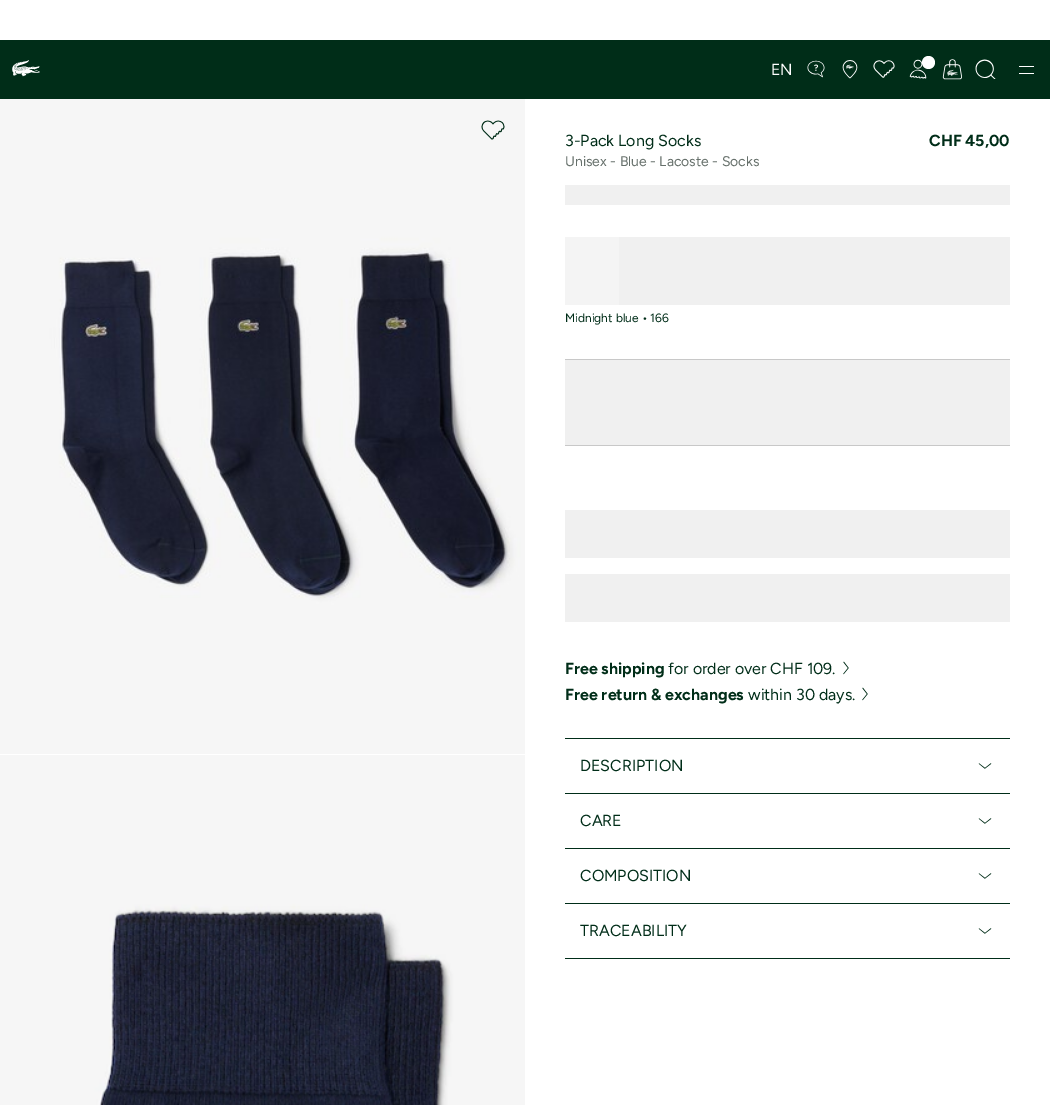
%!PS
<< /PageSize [1050 1106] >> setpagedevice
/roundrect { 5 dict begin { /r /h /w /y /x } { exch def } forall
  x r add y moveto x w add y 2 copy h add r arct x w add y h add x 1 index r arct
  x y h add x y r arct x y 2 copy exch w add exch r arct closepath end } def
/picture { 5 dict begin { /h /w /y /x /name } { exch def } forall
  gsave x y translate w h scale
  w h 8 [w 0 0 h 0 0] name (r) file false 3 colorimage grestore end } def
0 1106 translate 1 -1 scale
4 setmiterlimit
1 setgray
0 0 1050 1106 rectfill
0 0.176 0.094 setrgbcolor
0 40 1050 59 rectfill
(img1.rgb) 12 60 28 17 picture
/Figtree-Regular [16 0 0 -16 0 0] selectfont
1 setgray
771 75 moveto (EN) show
(img2.rgb) 807 60 18 18 picture
(img3.rgb) 842 60 16 19 picture
(img4.rgb) 873 60 22 18 picture
(img5.rgb) 909 59 18 20 picture
newpath 928.5 62.5 6.5 0 360 arc closepath fill
(img6.rgb) 942 59 20 21 picture
(img7.rgb) 975 59 21 20 picture
1019 66 15 1 0.5 roundrect fill
1019 73 15 1 0.5 roundrect fill
(img8.rgb) 0 99 525 655 picture
(img9.rgb) 0 755 525 350 picture
(img10.rgb) 481 120 24 20 picture
0 0.176 0.094 setrgbcolor
565 146 moveto (3-Pack Long Socks) show
/Figtree-Regular [14 0 0 -14 0 0] selectfont
0.4 0.439 0.42 setrgbcolor
565 166 moveto (Unisex - Blue - Lacoste - Socks) show
/Figtree-Bold [16 0 0 -16 0 0] selectfont
0 0.176 0.094 setrgbcolor
929 146 moveto (CHF 45,00) show
0.941 setgray
565 185 445 20 rectfill
619 237 391 68 rectfill
0.957 setgray
565 237 54 68 rectfill
/Figtree-Regular [12 0 0 -12 0 0] selectfont
0 0.176 0.094 setrgbcolor
565 322 moveto (Midnight blue • 166) show
0.784 setgray
565 359 445 1 rectfill
0.941 setgray
565 360 445 85 rectfill
0.784 setgray
565 445 445 1 rectfill
0.941 setgray
565 510 445 48 rectfill
565 574 445 48 rectfill
/Figtree-Bold [16 0 0 -16 0 0] selectfont
0 0.176 0.094 setrgbcolor
565 674 moveto (Free shipping) show
/Figtree-Regular [16 0 0 -16 0 0] selectfont
668 674 moveto (for order over CHF 109.) show
(img11.rgb) 843 661 6 14 picture
/Figtree-Bold [16 0 0 -16 0 0] selectfont
565 700 moveto (Free return & exchanges) show
/Figtree-Regular [16 0 0 -16 0 0] selectfont
748 700 moveto (within 30 days.) show
(img11.rgb) 862 687 6 14 picture
565 738 445 1 rectfill
580 771 moveto (DESCRIPTION) show
(img12.rgb) 978 763 14 6 picture
565 793 445 1 rectfill
580 826 moveto (CARE) show
(img12.rgb) 978 818 14 6 picture
565 848 445 1 rectfill
580 881 moveto (COMPOSITION) show
(img12.rgb) 978 873 14 6 picture
565 903 445 1 rectfill
580 936 moveto (TRACEABILITY) show
(img12.rgb) 978 928 14 6 picture
565 958 445 1 rectfill
showpage
